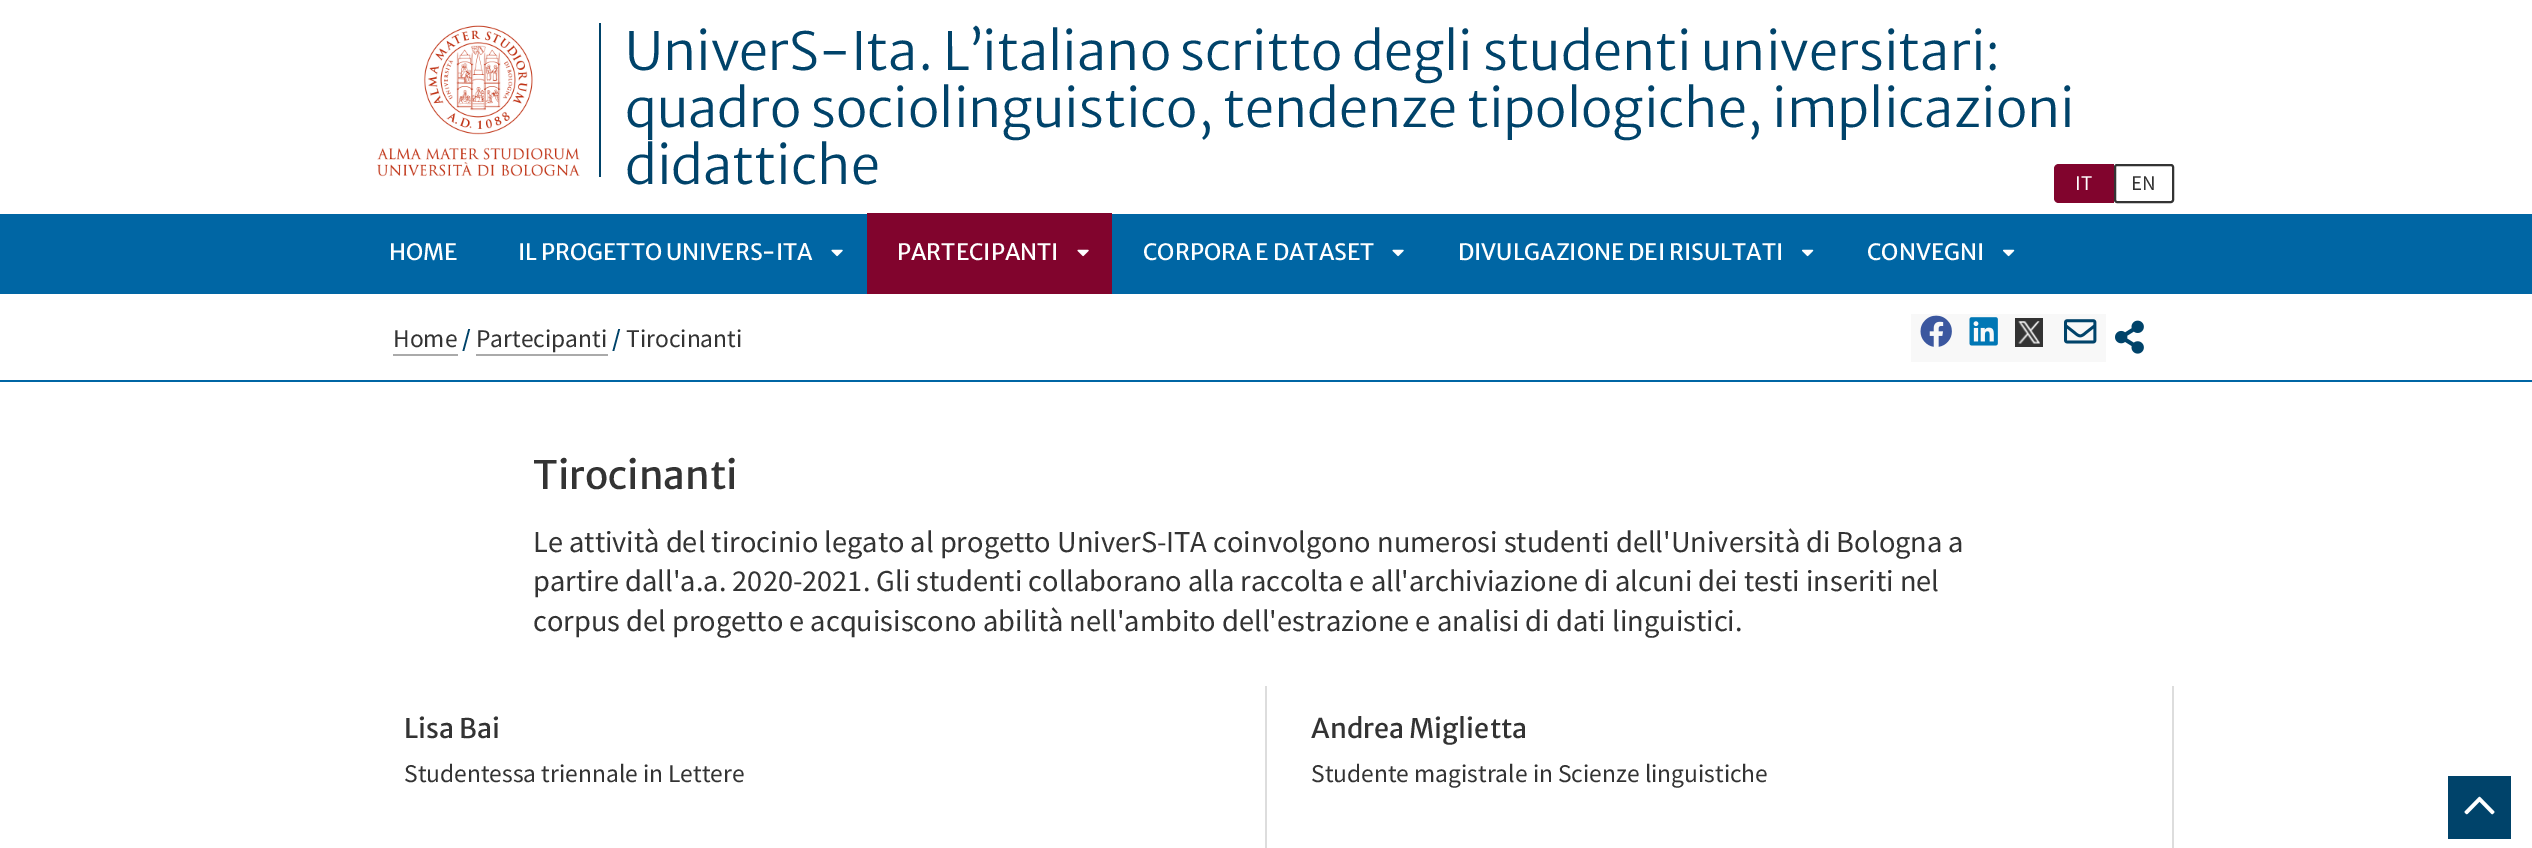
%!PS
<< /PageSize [2532 848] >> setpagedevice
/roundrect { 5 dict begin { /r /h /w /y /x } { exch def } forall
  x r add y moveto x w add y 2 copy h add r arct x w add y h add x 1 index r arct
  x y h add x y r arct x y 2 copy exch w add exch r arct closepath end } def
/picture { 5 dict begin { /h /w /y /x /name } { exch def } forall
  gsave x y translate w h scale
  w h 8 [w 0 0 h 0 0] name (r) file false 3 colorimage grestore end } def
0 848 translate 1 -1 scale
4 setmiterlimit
1 setgray
0 0 2532 848 rectfill
(img1.rgb) 377 25 203 152 picture
0 0.263 0.416 setrgbcolor
599 23 2 154 rectfill
/MerriweatherSans-Light [52.5 0 0 -52.5 0 0] selectfont
625 70 moveto (UniverS-Ita. L’italiano scritto degli studenti universitari:) show
625 127 moveto (quadro sociolinguistico, tendenze tipologiche, implicazioni) show
625 184 moveto (didattiche) show
0.506 0.016 0.176 setrgbcolor
newpath 2059 164 moveto 2114 164 lineto 2114 203 lineto 2059 203 lineto 2056 203 2054 201 2054 198 curveto 2054 169 lineto 2054 166 2056 164 2059 164 curveto closepath fill
/SourceSansPro-Regular [21 0 0 -21 0 0] selectfont
1 setgray
2075 190 moveto (IT) show
0.2 setgray
2 setlinewidth
2115 165 58 37 2 roundrect stroke
2131 190 moveto (EN) show
0 0.4 0.643 setrgbcolor
0 214 2532 80 rectfill
/MerriweatherSans-Regular [22.5 0 0 -22.5 0 0] selectfont
1 setgray
389 260 moveto (HOME) show
518 260 moveto (IL PROGETTO UNIVERS-ITA) show
(img2.rgb) 831 249 12 8 picture
0.506 0.016 0.176 setrgbcolor
867 213 245 81 rectfill
1 setgray
897 260 moveto (PARTECIPANTI) show
(img3.rgb) 1077 249 12 8 picture
1143 260 moveto (CORPORA E DATASET) show
(img2.rgb) 1392 249 12 8 picture
1458 260 moveto (DIVULGAZIONE DEI RISULTATI) show
(img4.rgb) 1802 249 12 8 picture
1867 260 moveto (CONVEGNI) show
(img4.rgb) 2003 249 12 8 picture
0 0.4 0.643 setrgbcolor
0 380 2532 2 rectfill
/SourceSansPro-Regular [25.5 0 0 -25.5 0 0] selectfont
0.2 setgray
393 347 moveto (Home) show
0.667 setgray
393 354 65 2 rectfill
/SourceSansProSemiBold-SemiBold [25.5 0 0 -25.5 0 0] selectfont
0 0.263 0.416 setrgbcolor
462 347 moveto (/) show
/SourceSansPro-Regular [25.5 0 0 -25.5 0 0] selectfont
0.2 setgray
476 347 moveto (Partecipanti) show
0.667 setgray
476 354 132 2 rectfill
/SourceSansProSemiBold-SemiBold [25.5 0 0 -25.5 0 0] selectfont
0 0.263 0.416 setrgbcolor
612 347 moveto (/) show
/SourceSansPro-Regular [25.5 0 0 -25.5 0 0] selectfont
0.2 setgray
626 347 moveto (Tirocinanti) show
0.973 setgray
1911 314 195 48 rectfill
(img5.rgb) 1920 315 32 32 picture
(img6.rgb) 1969 317 29 29 picture
0.2 setgray
2015 318 28 29 rectfill
(img7.rgb) 2018 321 22 23 picture
(img8.rgb) 2064 319 33 25 picture
(img9.rgb) 2115 320 29 34 picture
/MerriweatherSans-Regular [39 0 0 -39 0 0] selectfont
533 489 moveto (Tirocinanti) show
/SourceSansPro-Regular [30.4 0 0 -30.4 0 0] selectfont
533 552 moveto (Le attività del tirocinio legato al progetto UniverS-ITA coinvolgono numerosi studenti dell'Università di Bologna a) show
533 591 moveto (partire dall'a.a. 2020-2021. Gli studenti collaborano alla raccolta e all'archiviazione di alcuni dei testi inseriti nel) show
533 631 moveto (corpus del progetto e acquisiscono abilità nell'ambito dell'estrazione e analisi di dati linguistici.) show
0.867 setgray
1265 686 2 162 rectfill
/MerriweatherSans-Regular [27 0 0 -27 0 0] selectfont
0.2 setgray
404 738 moveto (Lisa Bai) show
/SourceSansPro-Regular [25.5 0 0 -25.5 0 0] selectfont
404 782 moveto (Studentessa triennale in Lettere) show
0.867 setgray
2172 686 2 162 rectfill
/MerriweatherSans-Regular [27 0 0 -27 0 0] selectfont
0.2 setgray
1311 738 moveto (Andrea Miglietta) show
/SourceSansPro-Regular [25.5 0 0 -25.5 0 0] selectfont
1311 782 moveto (Studente magistrale in Scienze linguistiche) show
0 0.263 0.416 setrgbcolor
2448 776 63 63 rectfill
(img10.rgb) 2464 796 31 19 picture
showpage
